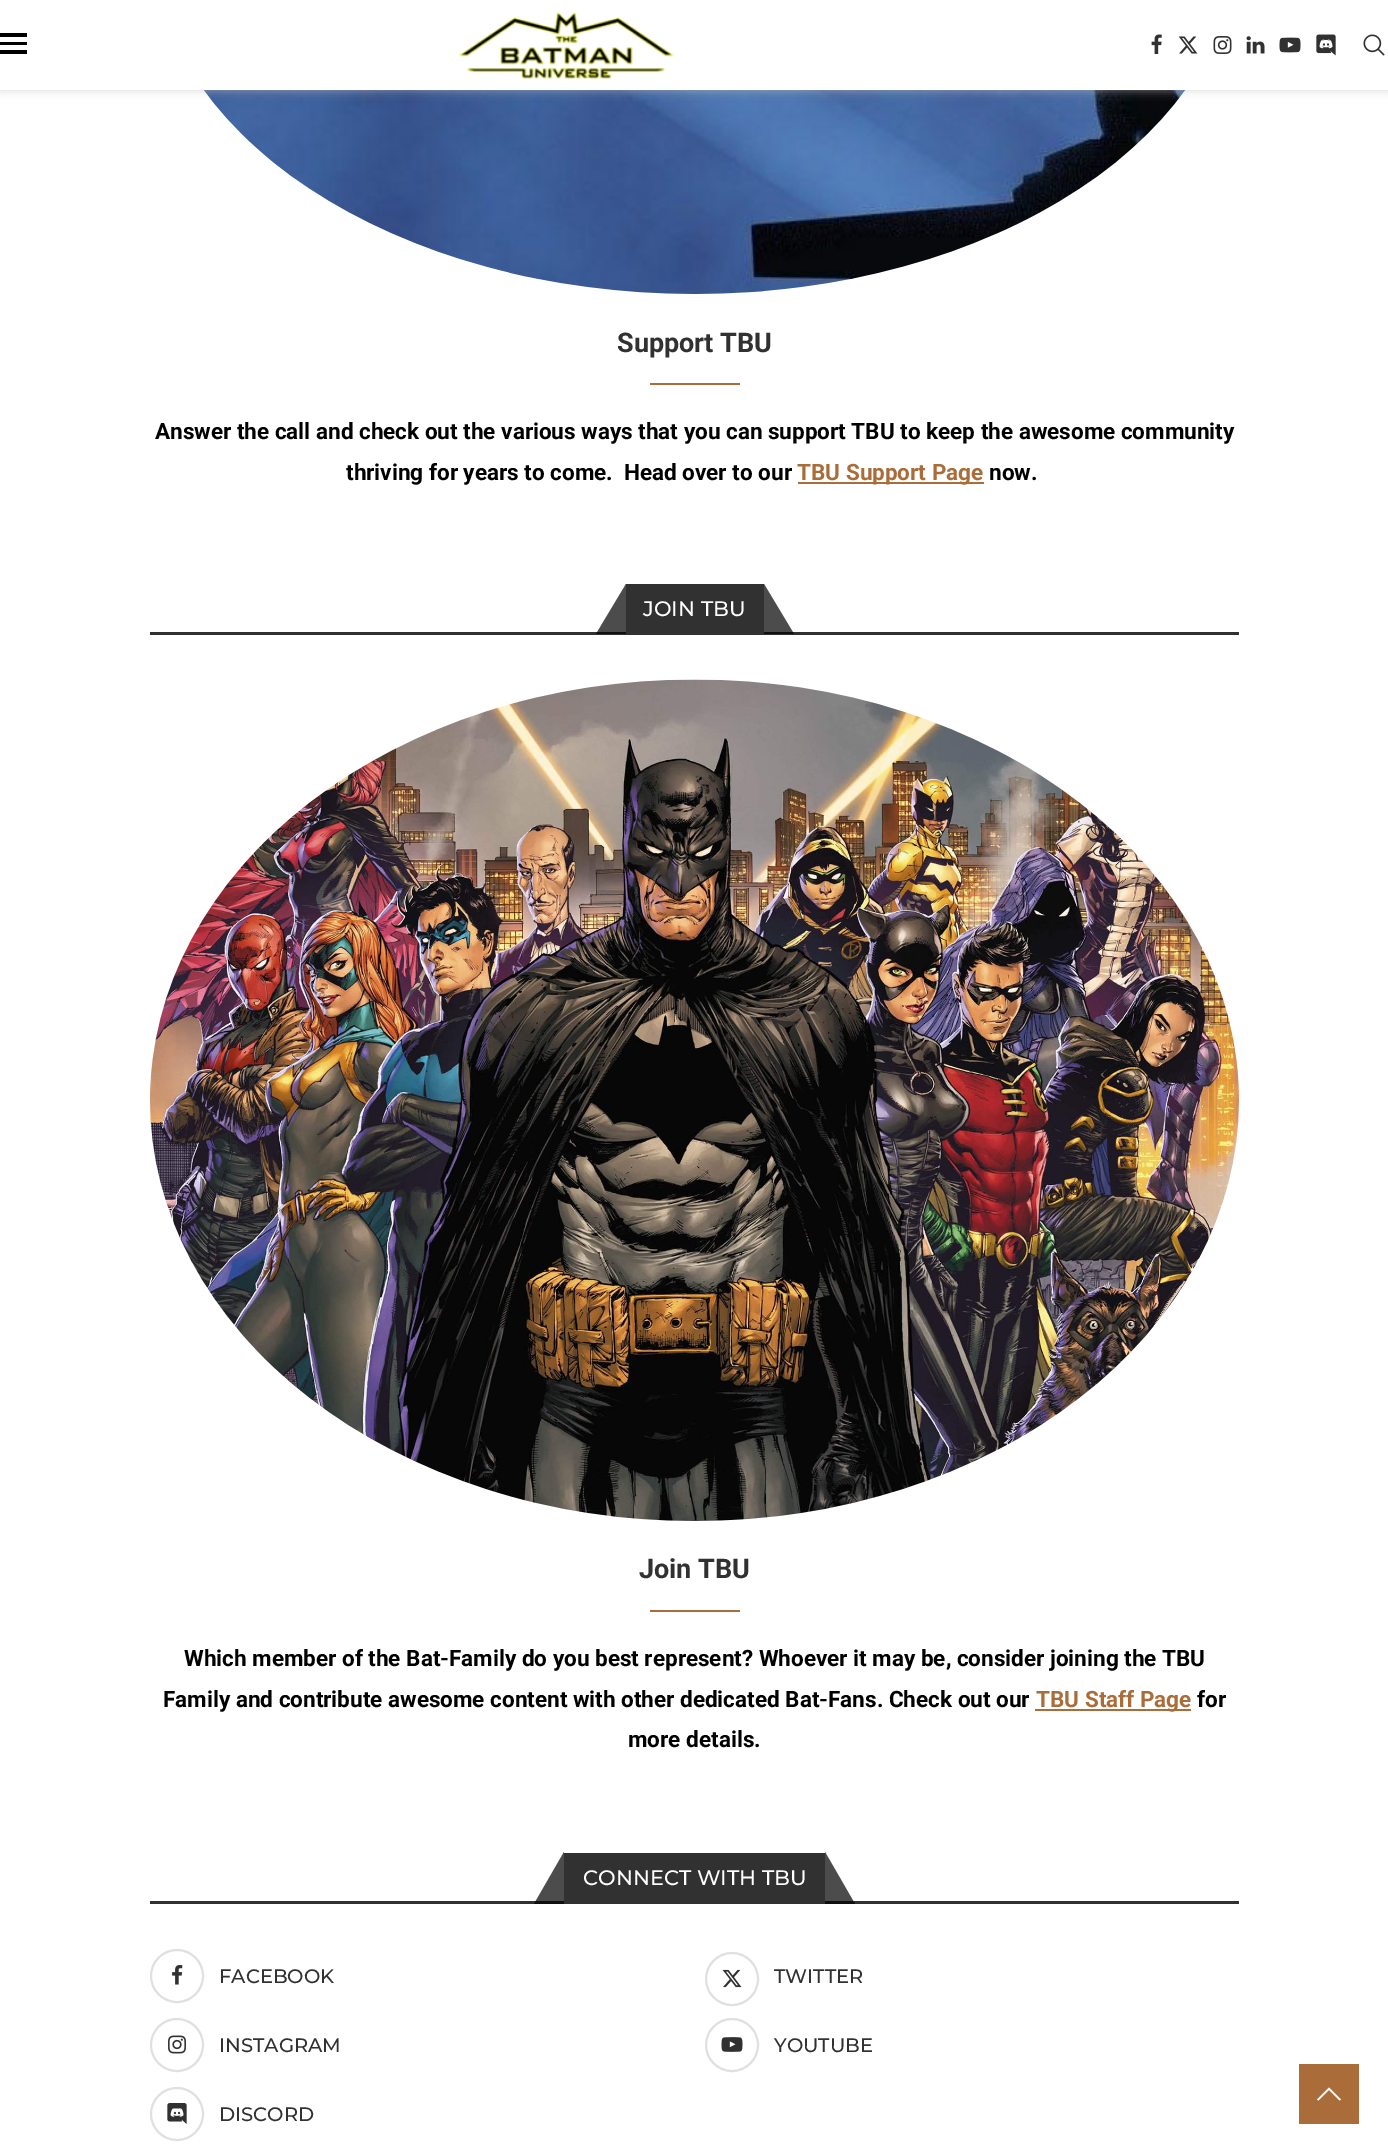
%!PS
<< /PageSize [1388 2153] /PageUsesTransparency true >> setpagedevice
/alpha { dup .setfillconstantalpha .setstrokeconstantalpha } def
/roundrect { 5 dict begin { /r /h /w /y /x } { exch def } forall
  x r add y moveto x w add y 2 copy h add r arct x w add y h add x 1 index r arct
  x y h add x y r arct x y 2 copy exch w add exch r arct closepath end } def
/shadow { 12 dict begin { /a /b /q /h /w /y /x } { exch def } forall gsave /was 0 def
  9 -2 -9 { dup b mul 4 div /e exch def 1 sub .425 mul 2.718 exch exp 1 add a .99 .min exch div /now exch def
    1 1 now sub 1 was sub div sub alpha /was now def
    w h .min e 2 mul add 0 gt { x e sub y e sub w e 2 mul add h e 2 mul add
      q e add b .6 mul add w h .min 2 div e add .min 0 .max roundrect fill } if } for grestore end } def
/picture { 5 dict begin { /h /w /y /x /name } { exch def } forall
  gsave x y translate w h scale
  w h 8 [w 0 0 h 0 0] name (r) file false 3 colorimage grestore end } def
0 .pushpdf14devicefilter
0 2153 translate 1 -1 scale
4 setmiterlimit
1 setgray
0 0 1388 2153 rectfill
(img9.rgb) 203 90 983 204 picture
0.745 setgray
0 2 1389 90 0 4 0.46 shadow
1 setgray
0 0 1388 90 rectfill
0 setgray
0 33 27 4 rectfill
0 42 27 3 rectfill
0 50 27 4 rectfill
(img1.rgb) 458 12 217 67 picture
(img2.rgb) 1151 34 11 20 picture
(img3.rgb) 1178 36 20 18 picture
(img4.rgb) 1213 36 19 18 picture
(img5.rgb) 1246 36 19 18 picture
(img6.rgb) 1279 37 22 16 picture
(img7.rgb) 1316 34 20 22 picture
(img8.rgb) 1363 34 22 22 picture
/Roboto-Bold [27 0 0 -27 0 0] selectfont
0.192 setgray
617 352 moveto (Support TBU) show
0.667 0.424 0.224 setrgbcolor
650 383 90 2 rectfill
/Roboto-Bold [22.5 0 0 -22.5 0 0] selectfont
0 setgray
155 439 moveto (Answer the call and check out the various ways that you can support TBU to keep the awesome community) show
346 480 moveto (thriving for years to come.  Head over to our) show
0.667 0.424 0.224 setrgbcolor
798 482 186 2 rectfill
797 480 moveto (TBU Support Page) show
0 setgray
989 480 moveto (now.) show
0.192 setgray
150 632 1089 3 rectfill
626 584 138 48 rectfill
0.7 alpha
0 setgray
newpath 626 634 moveto 596 634 lineto 626 584 lineto closepath fill
/Montserrat-Medium [21 0 0 -21 0 0] selectfont
1 alpha
1 setgray
643 616 moveto (JOIN TBU) show
0.7 alpha
0 setgray
newpath 794 634 moveto 764 634 lineto 764 584 lineto closepath fill
1 alpha
(img10.rgb) 150 679 1089 842 picture
/Roboto-Bold [27 0 0 -27 0 0] selectfont
0.192 setgray
639 1578 moveto (Join TBU) show
0.667 0.424 0.224 setrgbcolor
650 1610 90 2 rectfill
/Roboto-Bold [22.5 0 0 -22.5 0 0] selectfont
0 setgray
184 1666 moveto (Which member of the Bat-Family do you best represent? Whoever it may be, consider joining the TBU) show
163 1707 moveto (Family and contribute awesome content with other dedicated Bat-Fans. Check out our) show
0.667 0.424 0.224 setrgbcolor
1035 1709 156 2 rectfill
1036 1707 moveto (TBU Staff Page) show
0 setgray
1197 1707 moveto (for) show
628 1747 moveto (more details.) show
0.192 setgray
150 1901 1089 3 rectfill
564 1853 261 48 rectfill
0.7 alpha
0 setgray
newpath 564 1904 moveto 534 1904 lineto 564 1852 lineto closepath fill
/Montserrat-Medium [21 0 0 -21 0 0] selectfont
1 alpha
1 setgray
583 1885 moveto (CONNECT WITH TBU) show
0.7 alpha
0 setgray
newpath 855 1904 moveto 825 1904 lineto 825 1852 lineto closepath fill
1 alpha
0.878 setgray
2 setlinewidth
newpath 177 1976 26 0 360 arc closepath stroke
(img11.rgb) 172 1965 11 20 picture
/Montserrat-Medium [19.5 0 0 -19.5 0 0] selectfont
0.192 setgray
219 1983 moveto (FACEBOOK) show
0.878 setgray
newpath 732 1979 26 0 360 arc closepath stroke
(img12.rgb) 722 1969 20 19 picture
0.192 setgray
774 1983 moveto (TWITTER) show
0.878 setgray
newpath 177 2045 26 0 360 arc closepath stroke
(img13.rgb) 168 2035 18 19 picture
0.192 setgray
219 2052 moveto (INSTAGRAM) show
0.878 setgray
newpath 732 2045 26 0 360 arc closepath stroke
(img14.rgb) 721 2037 22 15 picture
0.192 setgray
774 2052 moveto (YOUTUBE) show
0.878 setgray
newpath 177 2114 26 0 360 arc closepath stroke
(img15.rgb) 167 2103 20 21 picture
0.192 setgray
219 2121 moveto (DISCORD) show
0.667 0.424 0.224 setrgbcolor
1299 2064 60 60 rectfill
1 setgray
newpath 1329 2087.5 moveto 1317 2099.5 lineto 1318.5 2100.5 lineto 1329 2090 lineto 1339.5 2100.5 lineto 1341 2099.5 lineto closepath fill
.poppdf14devicefilter showpage
